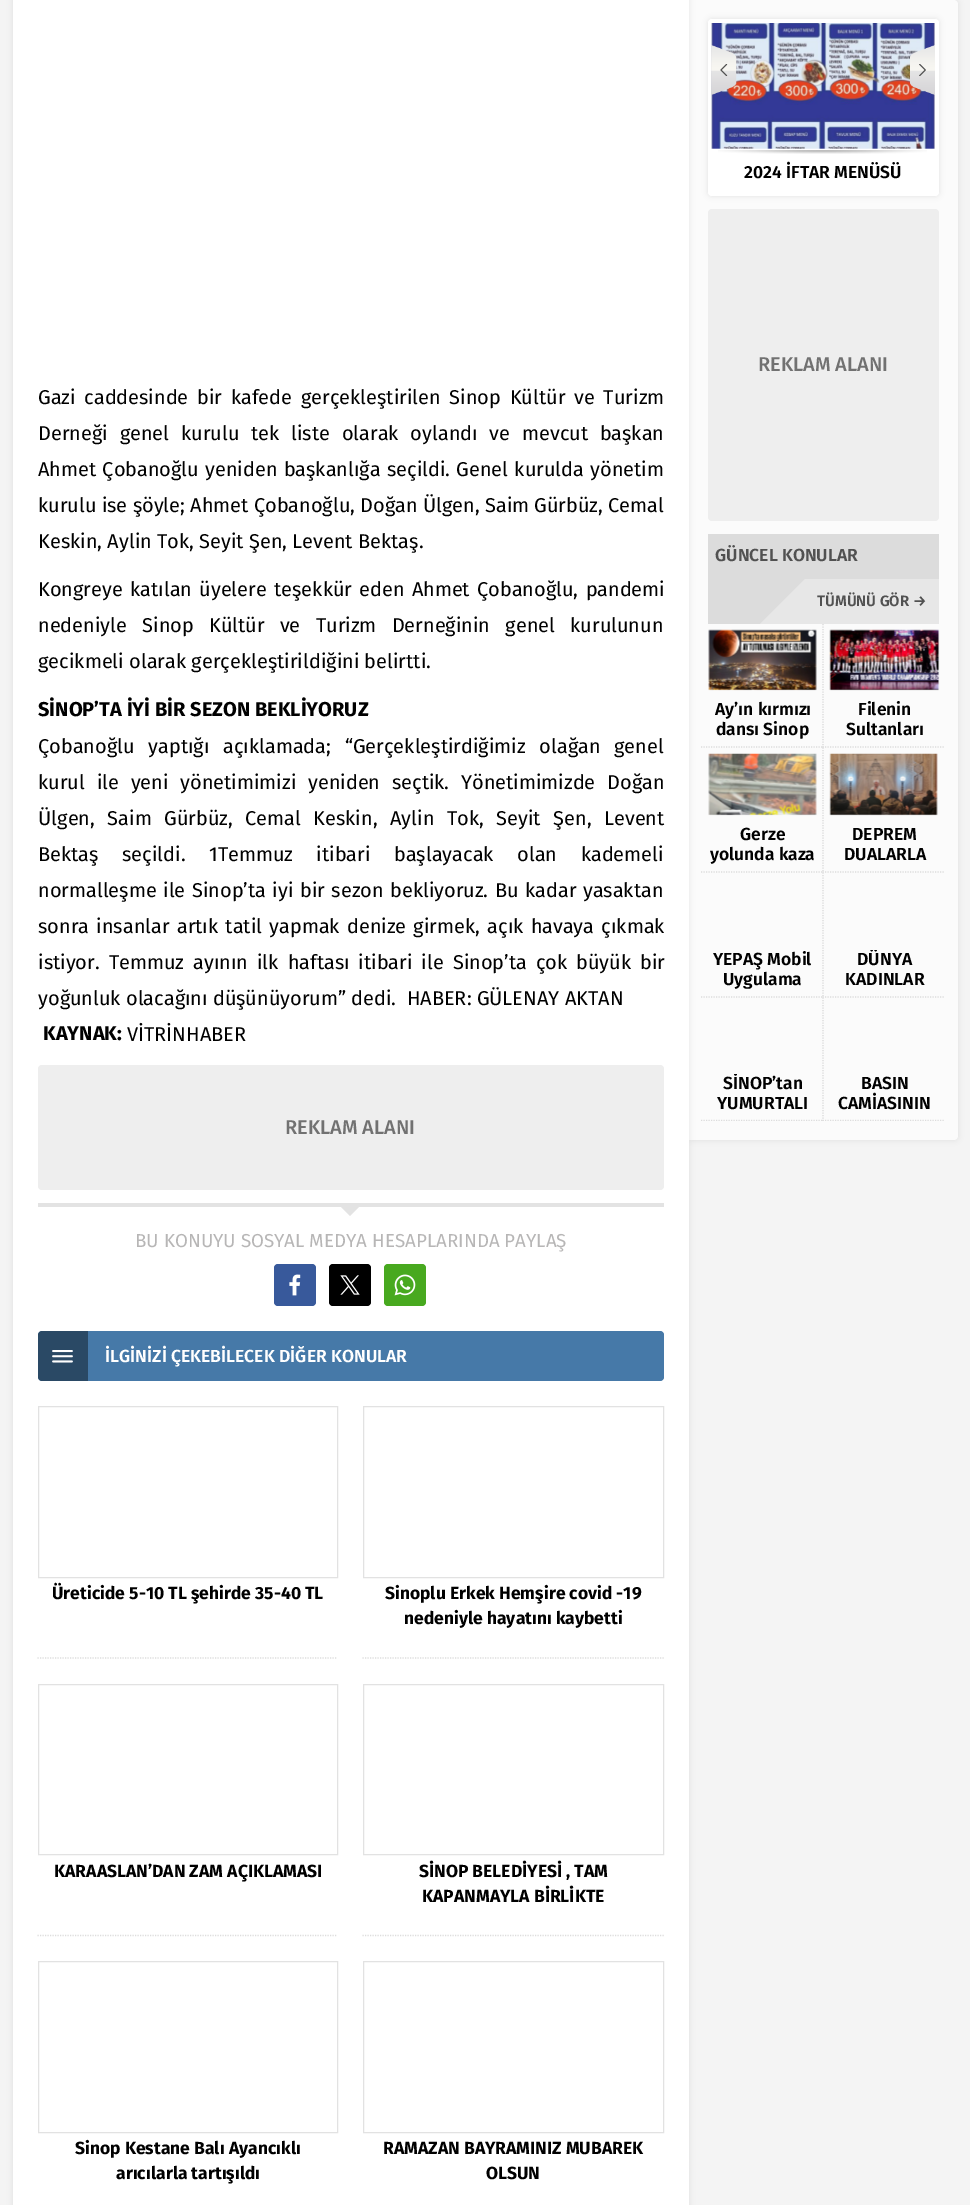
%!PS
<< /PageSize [970 2205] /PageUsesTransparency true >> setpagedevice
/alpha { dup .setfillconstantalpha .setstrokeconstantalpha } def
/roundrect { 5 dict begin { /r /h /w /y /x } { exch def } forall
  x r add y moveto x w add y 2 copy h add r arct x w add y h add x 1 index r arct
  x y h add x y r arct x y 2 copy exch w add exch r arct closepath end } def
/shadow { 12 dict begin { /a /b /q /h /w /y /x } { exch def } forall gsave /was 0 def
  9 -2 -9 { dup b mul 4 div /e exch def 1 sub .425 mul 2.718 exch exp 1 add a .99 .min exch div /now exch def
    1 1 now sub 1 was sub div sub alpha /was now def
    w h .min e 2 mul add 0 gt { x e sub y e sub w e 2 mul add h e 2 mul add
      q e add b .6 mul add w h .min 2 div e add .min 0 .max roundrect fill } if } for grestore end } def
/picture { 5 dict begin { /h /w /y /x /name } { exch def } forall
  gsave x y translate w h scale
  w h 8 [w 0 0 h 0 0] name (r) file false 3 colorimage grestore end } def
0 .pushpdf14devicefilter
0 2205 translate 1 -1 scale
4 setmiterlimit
0.957 setgray
0 0 970 2205 rectfill
0 setgray
689 0 269 1140 4 3 0.08 shadow
0.984 setgray
newpath 689 0 moveto 954 0 lineto 956 0 958 2 958 4 curveto 958 1136 lineto 958 1138 956 1140 954 1140 curveto 689 1140 lineto closepath fill
0 setgray
13 -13 676 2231 4 3 0.08 shadow
1 setgray
13 0 676 2205 rectfill
/FiraSans-Regular [20 0 0 -20 0 0] selectfont
0 setgray
38 404 moveto 3.5 0 32 (Gazi caddesinde bir kafede gerçekleştirilen Sinop Kültür ve Turizm) widthshow
38 440 moveto 6.5 0 32 (Derneği genel kurulu tek liste olarak oylandı ve mevcut başkan) widthshow
38 476 moveto 1 0 32 (Ahmet Çobanoğlu yeniden başkanlığa seçildi. Genel kurulda yönetim) widthshow
38 512 moveto (kurulu ise şöyle; Ahmet Çobanoğlu, Doğan Ülgen, Saim Gürbüz, Cemal) show
38 548 moveto (Keskin, Aylin Tok, Seyit Şen, Levent Bektaş.) show
38 596 moveto 2 0 32 (Kongreye katılan üyelere teşekkür eden Ahmet Çobanoğlu, pandemi) widthshow
38 632 moveto 10 0 32 (nedeniyle Sinop Kültür ve Turizm Derneğinin genel kurulunun) widthshow
38 668 moveto (gecikmeli olarak gerçekleştirildiğini belirtti.) show
/FiraSans-Bold [20 0 0 -20 0 0] selectfont
38 716 moveto (SİNOP’TA İYİ BİR SEZON BEKLİYORUZ) show
/FiraSans-Regular [20 0 0 -20 0 0] selectfont
38 753 moveto 8.5 0 32 (Çobanoğlu yaptığı açıklamada; “Gerçekleştirdiğimiz olağan genel) widthshow
38 789 moveto 6.5 0 32 (kurul ile yeni yönetimimizi yeniden seçtik. Yönetimimizde Doğan) widthshow
38 825 moveto 7.25 0 32 (Ülgen, Saim Gürbüz, Cemal Keskin, Aylin Tok, Seyit Şen, Levent) widthshow
38 861 moveto 18.25 0 32 (Bektaş seçildi. 1Temmuz itibari başlayacak olan kademeli) widthshow
38 897 moveto 1.25 0 32 (normalleşme ile Sinop’ta iyi bir sezon bekliyoruz. Bu kadar yasaktan) widthshow
38 933 moveto 2 0 32 (sonra insanlar artık tatil yapmak denize girmek, açık havaya çıkmak) widthshow
38 969 moveto 3.75 0 32 (istiyor. Temmuz ayının ilk haftası itibari ile Sinop’ta çok büyük bir) widthshow
38 1005 moveto (yoğunluk olacağını düşünüyorum” dedi.  HABER: GÜLENAY AKTAN) show
/FiraSans-Bold [20 0 0 -20 0 0] selectfont
43 1040 moveto (KAYNAK:) show
/FiraSans-Regular [20 0 0 -20 0 0] selectfont
127 1041 moveto (VİTRİNHABER) show
0.933 setgray
38 1065 626 125 4 roundrect fill
/FiraSans-Medium [20 0 0 -20 0 0] selectfont
0.443 setgray
285 1134 moveto (REKLAM ALANI) show
0.89 setgray
38 1203 626 4 rectfill
newpath 340 1206 moveto 360 1206 lineto 350 1216 lineto closepath fill
/FiraSans-Regular [18.75 0 0 -18.75 0 0] selectfont
0.718 0.714 0.714 setrgbcolor
135 1247 moveto (BU KONUYU SOSYAL MEDYA HESAPLARINDA PAYLAŞ) show
0.22 0.349 0.608 setrgbcolor
274 1264 42 42 4 roundrect fill
(img1.rgb) 289 1274 12 22 picture
0 setgray
329 1264 42 42 4 roundrect fill
(img2.rgb) 340 1275 20 20 picture
0.282 0.663 0.122 setrgbcolor
384 1264 42 42 4 roundrect fill
(img3.rgb) 394 1274 22 22 picture
0.275 0.475 0.659 setrgbcolor
38 1331 626 50 4 roundrect fill
0.4 alpha
0 setgray
newpath 42 1331 moveto 88 1331 lineto 88 1381 lineto 42 1381 lineto 40 1381 38 1379 38 1377 curveto 38 1335 lineto 38 1333 40 1331 42 1331 curveto closepath fill
1 alpha
(img4.rgb) 52 1350 21 13 picture
/FiraSans-SemiBold [17.5 0 0 -17.5 0 0] selectfont
1 setgray
105 1362 moveto (İLGİNİZİ ÇEKEBİLECEK DİĞER KONULAR) show
0.867 setgray
1.2 setlinewidth
[1.25 1.25] 0 setdash
newpath 37.5 1658 moveto 337.5 1658 lineto stroke
0.886 setgray
1 setlinewidth
[] 0 setdash
38.5 1406.5 299 171 rectstroke
/FiraSans-Bold [17.5 0 0 -17.5 0 0] selectfont
0 setgray
52 1599 moveto (Üreticide 5-10 TL şehirde 35-40 TL) show
0.867 setgray
1.2 setlinewidth
[1.25 1.25] 0 setdash
newpath 362.5 1658 moveto 664 1658 lineto stroke
0.886 setgray
1 setlinewidth
[] 0 setdash
363.5 1406.5 300 171 rectstroke
0 setgray
385 1599 moveto (Sinoplu Erkek Hemşire covid -19) show
404 1624 moveto (nedeniyle hayatını kaybetti) show
0.867 setgray
1.2 setlinewidth
[1.25 1.25] 0 setdash
newpath 37.5 1935.5 moveto 337.5 1935.5 lineto stroke
0.886 setgray
1 setlinewidth
[] 0 setdash
38.5 1684.5 299 170 rectstroke
0 setgray
54 1877 moveto (KARAASLAN’DAN ZAM AÇIKLAMASI) show
0.867 setgray
1.2 setlinewidth
[1.25 1.25] 0 setdash
newpath 362.5 1935.5 moveto 664 1935.5 lineto stroke
0.886 setgray
1 setlinewidth
[] 0 setdash
363.5 1684.5 300 170 rectstroke
0 setgray
419 1877 moveto (SİNOP BELEDİYESİ , TAM) show
422 1902 moveto (KAPANMAYLA BİRLİKTE) show
0.886 setgray
38.5 1961.5 299 171 rectstroke
0 setgray
75 2154 moveto (Sinop Kestane Balı Ayancıklı) show
116 2179 moveto (arıcılarla tartışıldı) show
0.886 setgray
363.5 1961.5 300 171 rectstroke
0 setgray
383 2154 moveto (RAMAZAN BAYRAMINIZ MUBAREK) show
486 2179 moveto (OLSUN) show
708 19 231 177 4 3 0.1 shadow
1 setgray
708 19 231 177 4 roundrect fill
(img10.rgb) 711 23 224 126 picture
(img5.rgb) 711 45 26 50 picture
(img6.rgb) 720 64 8 12 picture
(img7.rgb) 910 45 25 50 picture
(img8.rgb) 919 64 7 12 picture
(img9.rgb) 718 150 209 4 picture
/FiraSans-SemiBold [17.5 0 0 -17.5 0 0] selectfont
0 setgray
744 178 moveto (2024 İFTAR MENÜSÜ) show
0.933 setgray
708 209 231 312 4 roundrect fill
/FiraSans-Medium [20 0 0 -20 0 0] selectfont
0.443 setgray
758 371 moveto (REKLAM ALANI) show
0.863 setgray
708 534 231 90 rectfill
/FiraSans-SemiBold [17.5 0 0 -17.5 0 0] selectfont
0.318 setgray
715 561 moveto (GÜNCEL KONULAR) show
0.906 setgray
newpath 805 624 moveto 760 624 lineto 805 579 lineto closepath fill
805 579 134 45 rectfill
/FiraSans-SemiBold [15 0 0 -15 0 0] selectfont
0.318 setgray
817 606 moveto (TÜMÜNÜ GÖR →) show
0.863 setgray
1.2 setlinewidth
[1.25 1.25] 0 setdash
newpath 701 747 moveto 822.5 747 lineto stroke
(img11.rgb) 708 629 109 62 picture
/FiraSans-SemiBold [17.5 0 0 -17.5 0 0] selectfont
0 setgray
715 715 moveto (Ay’ın kırmızı) show
716 735 moveto (dansı Sinop) show
0.863 setgray
newpath 822.5 747 moveto 945 747 lineto stroke
newpath 823 624 moveto 823 747.5 lineto stroke
(img12.rgb) 829 629 111 62 picture
0 setgray
858 715 moveto (Filenin) show
846 735 moveto (Sultanları) show
0.863 setgray
newpath 701 872 moveto 822.5 872 lineto stroke
(img13.rgb) 708 753 109 63 picture
0 setgray
740 840 moveto (Gerze) show
710 860 moveto (yolunda kaza) show
0.863 setgray
newpath 822.5 872 moveto 945 872 lineto stroke
newpath 823 747.5 moveto 823 872.5 lineto stroke
(img14.rgb) 829 753 109 63 picture
0 setgray
852 840 moveto (DEPREM) show
844 860 moveto (DUALARLA) show
0.863 setgray
newpath 701 997 moveto 822.5 997 lineto stroke
0 setgray
713 965 moveto (YEPAŞ Mobil) show
723 985 moveto (Uygulama) show
0.863 setgray
newpath 822.5 997 moveto 945 997 lineto stroke
newpath 823 872.5 moveto 823 997.5 lineto stroke
gsave
830 950 109 40 rectclip
0 setgray
857 965 moveto (DÜNYA) show
grestore
0 setgray
845 985 moveto (KADINLAR) show
gsave
701 624 244 497 rectclip
0.863 setgray
newpath 701 1120.5 moveto 822.5 1120.5 lineto stroke
grestore
gsave
709 1074 107 40 rectclip
723 1089 moveto (SİNOP’tan) show
grestore
717 1109 moveto (YUMURTALI) show
gsave
701 624 244 497 rectclip
0.863 setgray
newpath 822.5 1120.5 moveto 945 1120.5 lineto stroke
grestore
0.863 setgray
newpath 823 997.5 moveto 823 1121 lineto stroke
0 setgray
861 1089 moveto (BASIN) show
838 1109 moveto (CAMİASININ) show
.poppdf14devicefilter showpage
